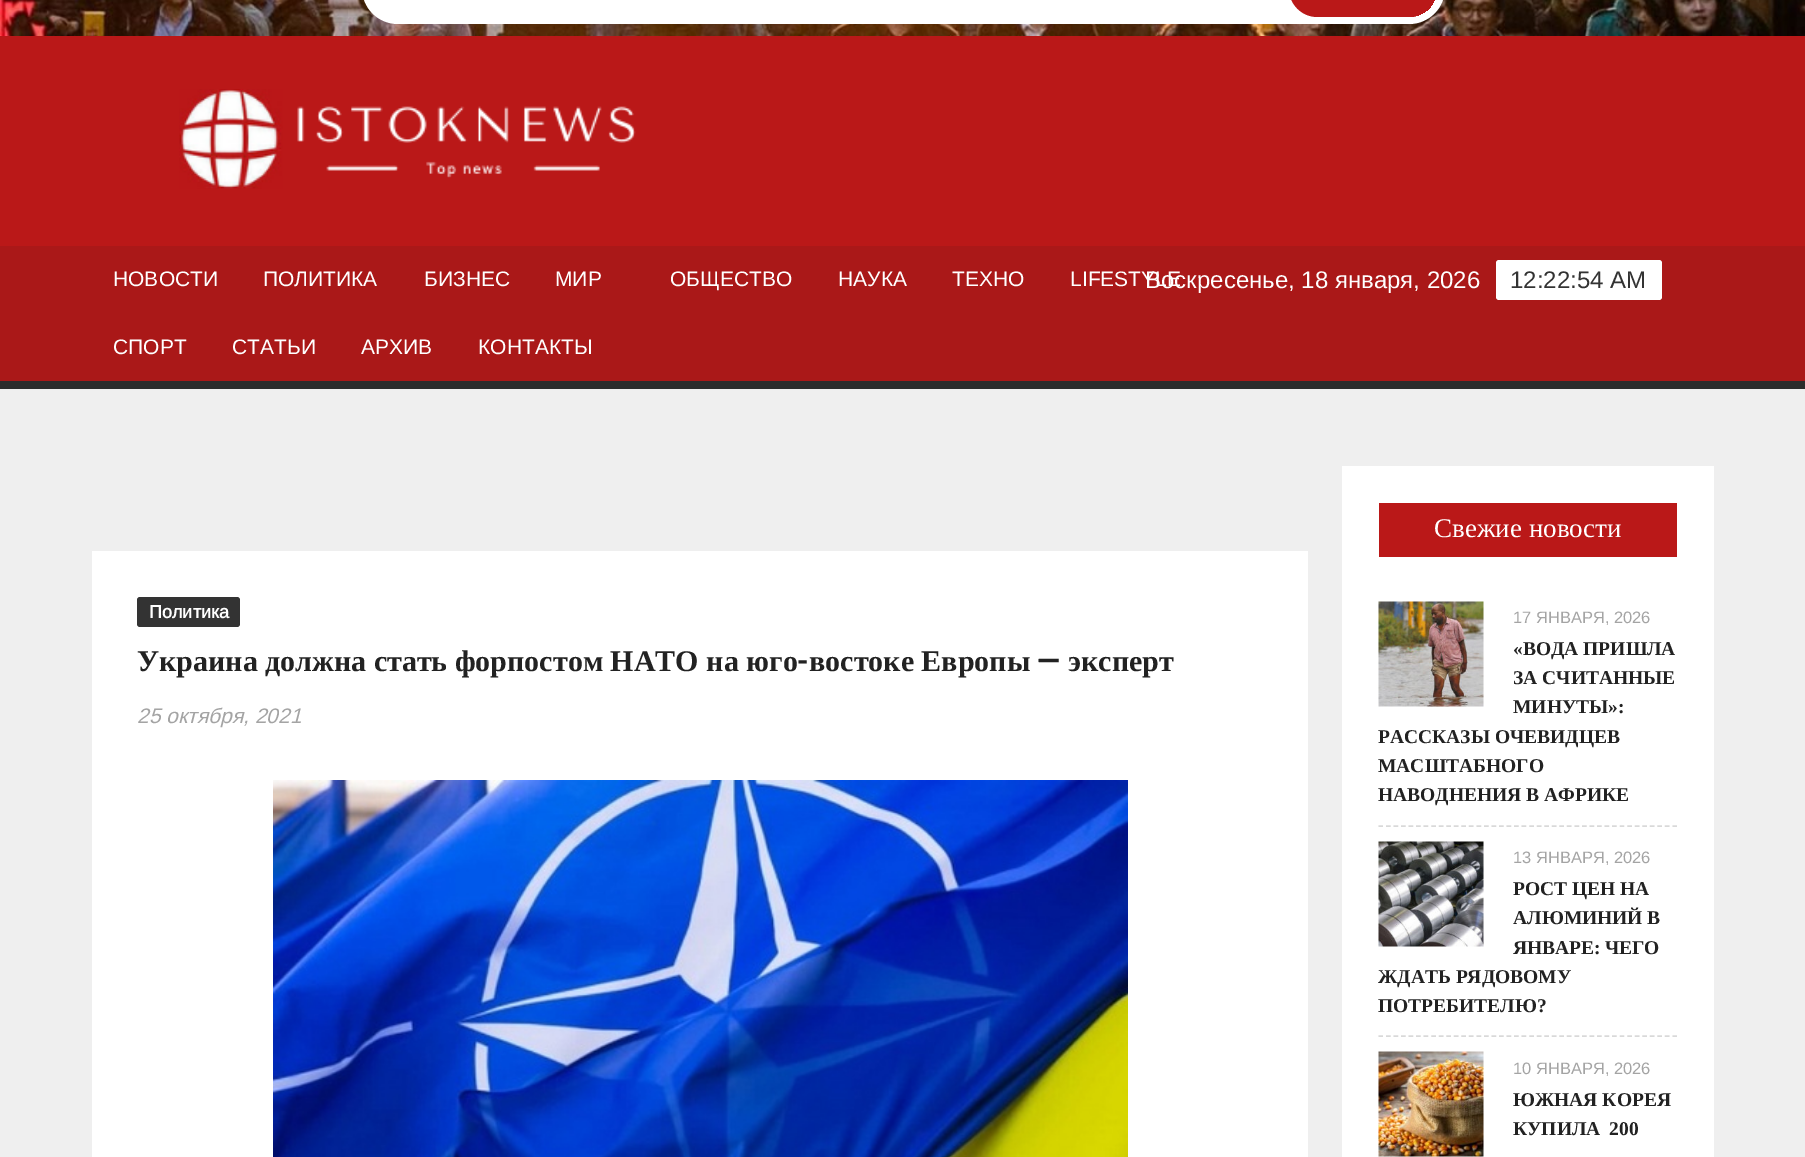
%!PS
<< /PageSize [1805 1157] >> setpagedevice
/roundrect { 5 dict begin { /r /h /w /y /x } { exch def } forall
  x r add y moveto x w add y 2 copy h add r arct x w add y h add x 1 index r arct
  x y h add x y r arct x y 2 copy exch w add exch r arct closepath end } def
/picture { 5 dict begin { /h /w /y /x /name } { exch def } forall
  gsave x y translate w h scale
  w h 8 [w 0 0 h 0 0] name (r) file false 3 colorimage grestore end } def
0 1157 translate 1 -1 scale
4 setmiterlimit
0.937 setgray
0 0 1805 1157 rectfill
(img1.rgb) 0 0 1805 36 picture
1 setgray
362 -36 1083 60 36 roundrect fill
gsave
369 -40 1068 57 28.5 roundrect clip newpath
0.729 0.094 0.094 setrgbcolor
1289 -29 150 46 28.5 roundrect fill
grestore
0.729 0.094 0.094 setrgbcolor
0 36 1805 210 rectfill
(img2.rgb) 179 89 457 100 picture
0.667 0.094 0.094 setrgbcolor
0 246 1805 135 rectfill
0.173 setgray
0 381 1805 8 rectfill
/Arimo-Regular [21 0 0 -21 0 0] selectfont
1 setgray
113 286 moveto (НОВОСТИ) show
263 286 moveto (ПОЛИТИКА) show
424 286 moveto (БИЗНЕС) show
555 286 moveto (МИР) show
670 286 moveto (ОБЩЕСТВО) show
838 286 moveto (НАУКА) show
952 286 moveto (ТЕХНО) show
1070 286 moveto (LIFESTYLE) show
113 354 moveto (СПОРТ) show
232 354 moveto (СТАТЬИ) show
361 354 moveto (АРХИВ) show
478 354 moveto (КОНТАКТЫ) show
/Arimo-Regular [24 0 0 -24 0 0] selectfont
1145 288 moveto (Воскресенье, 18 января, 2026) show
1496 260 166 40 3 roundrect fill
0.2 setgray
1510 288 moveto (12:22:54 AM) show
1 setgray
92 551 1216 606 rectfill
0.2 setgray
137 597 103 30 3 roundrect fill
/Arimo-Bold [18 0 0 -18 0 0] selectfont
1 setgray
149 618 moveto (Политика) show
/LiberationSerif-Bold [30 0 0 -30 0 0] selectfont
0.133 setgray
137 671 moveto (Украина должна стать форпостом НАТО на юго) show
/Heebo-Bold [30 0 0 -30 0 0] selectfont
797 671 moveto (-) show
/LiberationSerif-Bold [30 0 0 -30 0 0] selectfont
809 671 moveto (востоке Европы) show
/Heebo-Bold [30 0 0 -30 0 0] selectfont
1037 671 moveto (—) show
/LiberationSerif-Bold [30 0 0 -30 0 0] selectfont
1068 671 moveto (эксперт) show
/Arimo-Italic [21 0 0 -21 0 0] selectfont
0.643 setgray
137 723 moveto (25 октября, 2021) show
(img3.rgb) 273 780 855 377 picture
1 setgray
1342 466 372 691 rectfill
0.729 0.094 0.094 setrgbcolor
1379 503 298 54 rectfill
/LiberationSerif-Regular [27 0 0 -27 0 0] selectfont
1 setgray
1434 537 moveto (Свежие новости) show
0.851 setgray
1.5 setlinewidth
[4.5 3.04] 0 setdash
newpath 1378.5 826 moveto 1677 826 lineto stroke
(img4.rgb) 1378 601 106 106 picture
/Arimo-Regular [16.5 0 0 -16.5 0 0] selectfont
0.643 setgray
1513 623 moveto (17 ЯНВАРЯ, 2026) show
/LiberationSerif-Bold [19.5 0 0 -19.5 0 0] selectfont
0.133 setgray
1513 655 moveto («ВОДА ПРИШЛА) show
1513 684 moveto (ЗА СЧИТАННЫЕ) show
1513 713 moveto (МИНУТЫ»:) show
1378 743 moveto (РАССКАЗЫ ОЧЕВИДЦЕВ) show
1378 772 moveto (МАСШТАБНОГО) show
1378 801 moveto (НАВОДНЕНИЯ В АФРИКЕ) show
0.851 setgray
newpath 1378.5 1036 moveto 1677 1036 lineto stroke
(img5.rgb) 1378 841 106 106 picture
/Arimo-Regular [16.5 0 0 -16.5 0 0] selectfont
0.643 setgray
1513 863 moveto (13 ЯНВАРЯ, 2026) show
/LiberationSerif-Bold [19.5 0 0 -19.5 0 0] selectfont
0.133 setgray
1513 895 moveto (РОСТ ЦЕН НА) show
1513 924 moveto (АЛЮМИНИЙ В) show
1513 954 moveto -1 0 32 (ЯНВАРЕ: ЧЕГО) widthshow
1378 983 moveto (ЖДАТЬ РЯДОВОМУ) show
1378 1012 moveto (ПОТРЕБИТЕЛЮ?) show
(img6.rgb) 1378 1051 106 106 picture
/Arimo-Regular [16.5 0 0 -16.5 0 0] selectfont
0.643 setgray
1513 1074 moveto (10 ЯНВАРЯ, 2026) show
/LiberationSerif-Bold [19.5 0 0 -19.5 0 0] selectfont
0.133 setgray
1513 1106 moveto (ЮЖНАЯ КОРЕЯ) show
1513 1135 moveto 4 0 32 (КУПИЛА 200) widthshow
showpage
